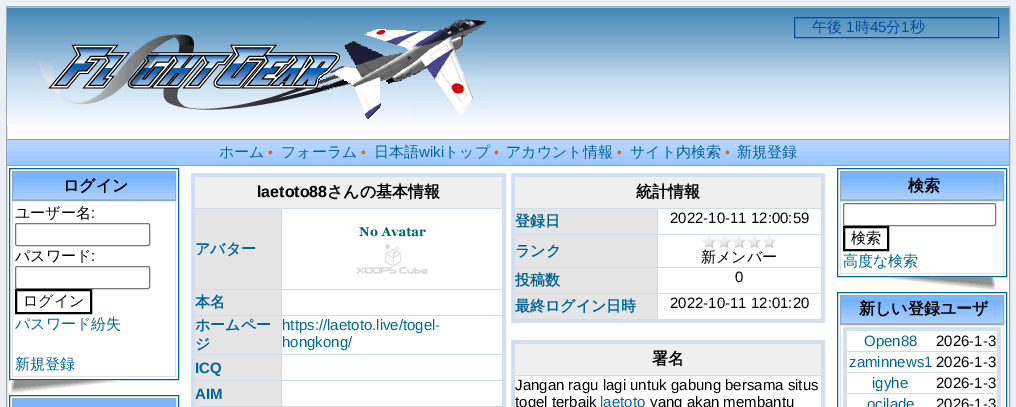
%!PS
<< /PageSize [1016 407] >> setpagedevice
/roundrect { 5 dict begin { /r /h /w /y /x } { exch def } forall
  x r add y moveto x w add y 2 copy h add r arct x w add y h add x 1 index r arct
  x y h add x y r arct x y 2 copy exch w add exch r arct closepath end } def
/picture { 5 dict begin { /h /w /y /x /name } { exch def } forall
  gsave x y translate w h scale
  w h 8 [w 0 0 h 0 0] name (r) file false 3 colorimage grestore end } def
0 407 translate 1 -1 scale
4 setmiterlimit
0.925 0.941 0.965 setrgbcolor
0 0 1016 407 rectfill
1 setgray
7 125 1002 282 rectfill
0.596 0.667 0.694 setrgbcolor
6.5 6.5 1003 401 rectstroke
(img1.rgb) 7 7 1002 118 picture
(img2.rgb) 37 19 449 101 picture
0 0.314 0.62 setrgbcolor
794.5 17.5 204 20 rectstroke
/WenQuanYiZenHei-Medium [15 0 0 -15 0 0] selectfont
812 32 moveto (午後) show
/LiberationSans-Regular [15 0 0 -15 0 0] selectfont
846 32 moveto (1) show
/WenQuanYiZenHei-Medium [15 0 0 -15 0 0] selectfont
855 32 moveto (時) show
/LiberationSans-Regular [15 0 0 -15 0 0] selectfont
870 32 moveto (45) show
/WenQuanYiZenHei-Medium [15 0 0 -15 0 0] selectfont
886 32 moveto (分) show
/LiberationSans-Regular [15 0 0 -15 0 0] selectfont
901 32 moveto (1) show
/WenQuanYiZenHei-Medium [15 0 0 -15 0 0] selectfont
910 32 moveto (秒) show
(img3.rgb) 7 140 1002 25 picture
0.569 0.627 0.682 setrgbcolor
7 139 1002 1 rectfill
7 165 1002 1 rectfill
0 0.4 0.6 setrgbcolor
219 157 moveto (ホーム) show
/LiberationSans-Regular [14 0 0 -14 0 0] selectfont
0.867 0.412 0 setrgbcolor
268 157 moveto (•) show
/WenQuanYiZenHei-Medium [15 0 0 -15 0 0] selectfont
0 0.4 0.6 setrgbcolor
281 157 moveto (フォーラム) show
/LiberationSans-Regular [14 0 0 -14 0 0] selectfont
0.867 0.412 0 setrgbcolor
361 157 moveto (•) show
/WenQuanYiZenHei-Medium [15 0 0 -15 0 0] selectfont
0 0.4 0.6 setrgbcolor
374 157 moveto (日本語) show
/LiberationSans-Regular [15 0 0 -15 0 0] selectfont
419 157 moveto (wiki) show
/WenQuanYiZenHei-Medium [15 0 0 -15 0 0] selectfont
444 157 moveto (トップ) show
/LiberationSans-Regular [14 0 0 -14 0 0] selectfont
0.867 0.412 0 setrgbcolor
494 157 moveto (•) show
/WenQuanYiZenHei-Medium [15 0 0 -15 0 0] selectfont
0 0.4 0.6 setrgbcolor
506 157 moveto (アカウント情報) show
/LiberationSans-Regular [14 0 0 -14 0 0] selectfont
0.867 0.412 0 setrgbcolor
617 157 moveto (•) show
/WenQuanYiZenHei-Medium [15 0 0 -15 0 0] selectfont
0 0.4 0.6 setrgbcolor
630 157 moveto (サイト内検索) show
/LiberationSans-Regular [14 0 0 -14 0 0] selectfont
0.867 0.412 0 setrgbcolor
725 157 moveto (•) show
/WenQuanYiZenHei-Medium [15 0 0 -15 0 0] selectfont
0 0.4 0.6 setrgbcolor
737 157 moveto (新規登録) show
9.5 168.5 169 211 rectstroke
(img4.rgb) 13 172 162 28 picture
0.596 0.667 0.694 setrgbcolor
12.5 171.5 163 29 rectstroke
/WenQuanYiZenHei-Bold [16 0 0 -16 0 0] selectfont
0 setgray
63 191 moveto (ログイン) show
0.851 0.886 0.925 setrgbcolor
175 201 1 176 rectfill
12 376 164 1 rectfill
12 201 1 176 rectfill
/WenQuanYiZenHei-Medium [15 0 0 -15 0 0] selectfont
0 setgray
15 218 moveto (ユーザー名) show
/LiberationSans-Regular [15 0 0 -15 0 0] selectfont
91 218 moveto (:) show
0.463 setgray
15.5 223.5 134 22 1.5 roundrect stroke
/WenQuanYiZenHei-Medium [15 0 0 -15 0 0] selectfont
0 setgray
15 261 moveto (パスワード) show
/LiberationSans-Regular [15 0 0 -15 0 0] selectfont
91 261 moveto (:) show
0.463 setgray
15.5 266.5 134 22 1.5 roundrect stroke
0 setgray
2 setlinewidth
16 290 75 23 rectstroke
/WenQuanYiZenHei-Medium [15 0 0 -15 0 0] selectfont
23 306 moveto (ログイン) show
0 0.4 0.6 setrgbcolor
15 329 moveto (パスワード紛失) show
15 369 moveto (新規登録) show
(img5.rgb) 11 380 109 13 picture
1 setlinewidth
9.5 395.5 169 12 rectstroke
(img6.rgb) 13 399 162 8 picture
0.596 0.667 0.694 setrgbcolor
12.5 398.5 163 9 rectstroke
0.808 0.863 0.925 setrgbcolor
newpath 191.5 173.5 moveto 505.5 173.5 lineto 505.5 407.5 lineto 191.5 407.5 lineto closepath gsave fill grestore
0.851 0.886 0.925 setrgbcolor
stroke
193.5 175.5 310 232 rectstroke
0.937 setgray
195 177 307 31 rectfill
/LiberationSans-Bold [16 0 0 -16 0 0] selectfont
0 setgray
257 197 moveto (laetoto88) show
/WenQuanYiZenHei-Bold [16 0 0 -16 0 0] selectfont
327 197 moveto (さんの基本情報) show
0.898 setgray
195 209 86 80 rectfill
/WenQuanYiZenHei-Bold [15 0 0 -15 0 0] selectfont
0 0.4 0.6 setrgbcolor
195 254 moveto (アバター) show
1 setgray
282 209 220 80 rectfill
(img7.rgb) 356 227 72 47 picture
0.898 setgray
195 290 86 25 rectfill
0 0.4 0.6 setrgbcolor
195 307 moveto (本名) show
1 setgray
282 290 220 25 rectfill
0.898 setgray
195 316 86 38 rectfill
0 0.4 0.6 setrgbcolor
195 330 moveto (ホームペー) show
195 349 moveto (ジ) show
1 setgray
282 316 220 38 rectfill
/LiberationSans-Regular [15 0 0 -15 0 0] selectfont
0 0.4 0.6 setrgbcolor
282 330 moveto (https://laetoto.live/togel-) show
282 347 moveto (hongkong/) show
0.898 setgray
195 355 86 25 rectfill
/LiberationSans-Bold [15 0 0 -15 0 0] selectfont
0 0.4 0.6 setrgbcolor
195 373 moveto (ICQ) show
1 setgray
282 355 220 25 rectfill
0.898 setgray
195 381 86 25 rectfill
0 0.4 0.6 setrgbcolor
195 399 moveto (AIM) show
1 setgray
282 381 220 25 rectfill
0.808 0.863 0.925 setrgbcolor
newpath 511.5 173.5 moveto 824.5 173.5 lineto 824.5 322.5 lineto 511.5 322.5 lineto closepath gsave fill grestore
0.851 0.886 0.925 setrgbcolor
stroke
513.5 175.5 309 145 rectstroke
0.937 setgray
515 177 306 31 rectfill
/WenQuanYiZenHei-Bold [16 0 0 -16 0 0] selectfont
0 setgray
636 197 moveto (統計情報) show
0.898 setgray
515 209 142 25 rectfill
/WenQuanYiZenHei-Bold [15 0 0 -15 0 0] selectfont
0 0.4 0.6 setrgbcolor
515 226 moveto (登録日) show
1 setgray
658 209 163 25 rectfill
/LiberationSans-Regular [15 0 0 -15 0 0] selectfont
0 setgray
670 223 moveto (2022-10-11 12:00:59) show
0.898 setgray
515 235 142 32 rectfill
/WenQuanYiZenHei-Bold [15 0 0 -15 0 0] selectfont
0 0.4 0.6 setrgbcolor
515 256 moveto (ランク) show
1 setgray
658 235 163 32 rectfill
(img8.rgb) 702 235 74 13 picture
/WenQuanYiZenHei-Medium [15 0 0 -15 0 0] selectfont
0 setgray
701 262 moveto (新メンバー) show
0.898 setgray
515 268 142 25 rectfill
/WenQuanYiZenHei-Bold [15 0 0 -15 0 0] selectfont
0 0.4 0.6 setrgbcolor
515 285 moveto (投稿数) show
1 setgray
658 268 163 25 rectfill
/LiberationSans-Regular [15 0 0 -15 0 0] selectfont
0 setgray
735 282 moveto (0) show
0.898 setgray
515 294 142 25 rectfill
/WenQuanYiZenHei-Bold [15 0 0 -15 0 0] selectfont
0 0.4 0.6 setrgbcolor
515 311 moveto (最終ログイン日時) show
1 setgray
658 294 163 25 rectfill
/LiberationSans-Regular [15 0 0 -15 0 0] selectfont
0 setgray
670 308 moveto (2022-10-11 12:01:20) show
0.808 0.863 0.925 setrgbcolor
newpath 511.5 340.5 moveto 824.5 340.5 lineto 824.5 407.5 lineto 511.5 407.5 lineto closepath gsave fill grestore
0.851 0.886 0.925 setrgbcolor
stroke
513.5 342.5 309 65 rectstroke
0.937 setgray
515 344 306 31 rectfill
/WenQuanYiZenHei-Bold [16 0 0 -16 0 0] selectfont
0 setgray
652 364 moveto (署名) show
1 setgray
515 376 306 31 rectfill
/LiberationSans-Regular [15 0 0 -15 0 0] selectfont
0 setgray
515 390 moveto (Jangan ragu lagi untuk gabung bersama situs) show
515 407 moveto (togel terbaik) show
0 0.4 0.6 setrgbcolor
600 407 moveto (laetoto) show
0 setgray
650 407 moveto (yang akan membantu) show
0 0.4 0.6 setrgbcolor
837.5 168.5 169 108 rectstroke
(img4.rgb) 841 172 162 28 picture
0.596 0.667 0.694 setrgbcolor
840.5 171.5 163 29 rectstroke
/WenQuanYiZenHei-Bold [16 0 0 -16 0 0] selectfont
0 setgray
908 191 moveto (検索) show
0.851 0.886 0.925 setrgbcolor
1003 201 1 73 rectfill
840 273 164 1 rectfill
840 201 1 73 rectfill
0.463 setgray
843.5 203.5 152 22 1.5 roundrect stroke
0 setgray
2 setlinewidth
844 227 44 23 rectstroke
/WenQuanYiZenHei-Medium [15 0 0 -15 0 0] selectfont
851 243 moveto (検索) show
0 0.4 0.6 setrgbcolor
843 266 moveto (高度な検索) show
(img9.rgb) 886 277 109 13 picture
1 setlinewidth
837.5 292.5 169 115 rectstroke
(img4.rgb) 841 296 162 28 picture
0.596 0.667 0.694 setrgbcolor
840.5 295.5 163 29 rectstroke
/WenQuanYiZenHei-Bold [16 0 0 -16 0 0] selectfont
0 setgray
859 314 moveto (新しい登録ユーザ) show
0.851 0.886 0.925 setrgbcolor
1003 325 1 82 rectfill
840 325 1 82 rectfill
0.808 0.863 0.925 setrgbcolor
newpath 843.5 327.5 moveto 1000.5 327.5 lineto 1000.5 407.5 lineto 843.5 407.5 lineto closepath gsave fill grestore
0.851 0.886 0.925 setrgbcolor
stroke
845.5 329.5 153 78 rectstroke
1 setgray
847 331 150 20 rectfill
/LiberationSans-Regular [15 0 0 -15 0 0] selectfont
0 0.4 0.6 setrgbcolor
864 346 moveto (Open88) show
0 setgray
936 346 moveto (2026-1-3) show
1 setgray
847 352 150 20 rectfill
0 0.4 0.6 setrgbcolor
849 367 moveto (zaminnews1) show
0 setgray
936 367 moveto (2026-1-3) show
1 setgray
847 373 150 20 rectfill
0 0.4 0.6 setrgbcolor
872 388 moveto (igyhe) show
0 setgray
936 388 moveto (2026-1-3) show
1 setgray
847 394 150 13 rectfill
0 0.4 0.6 setrgbcolor
867 409 moveto (ocilade) show
0 setgray
936 409 moveto (2026-1-3) show
showpage
